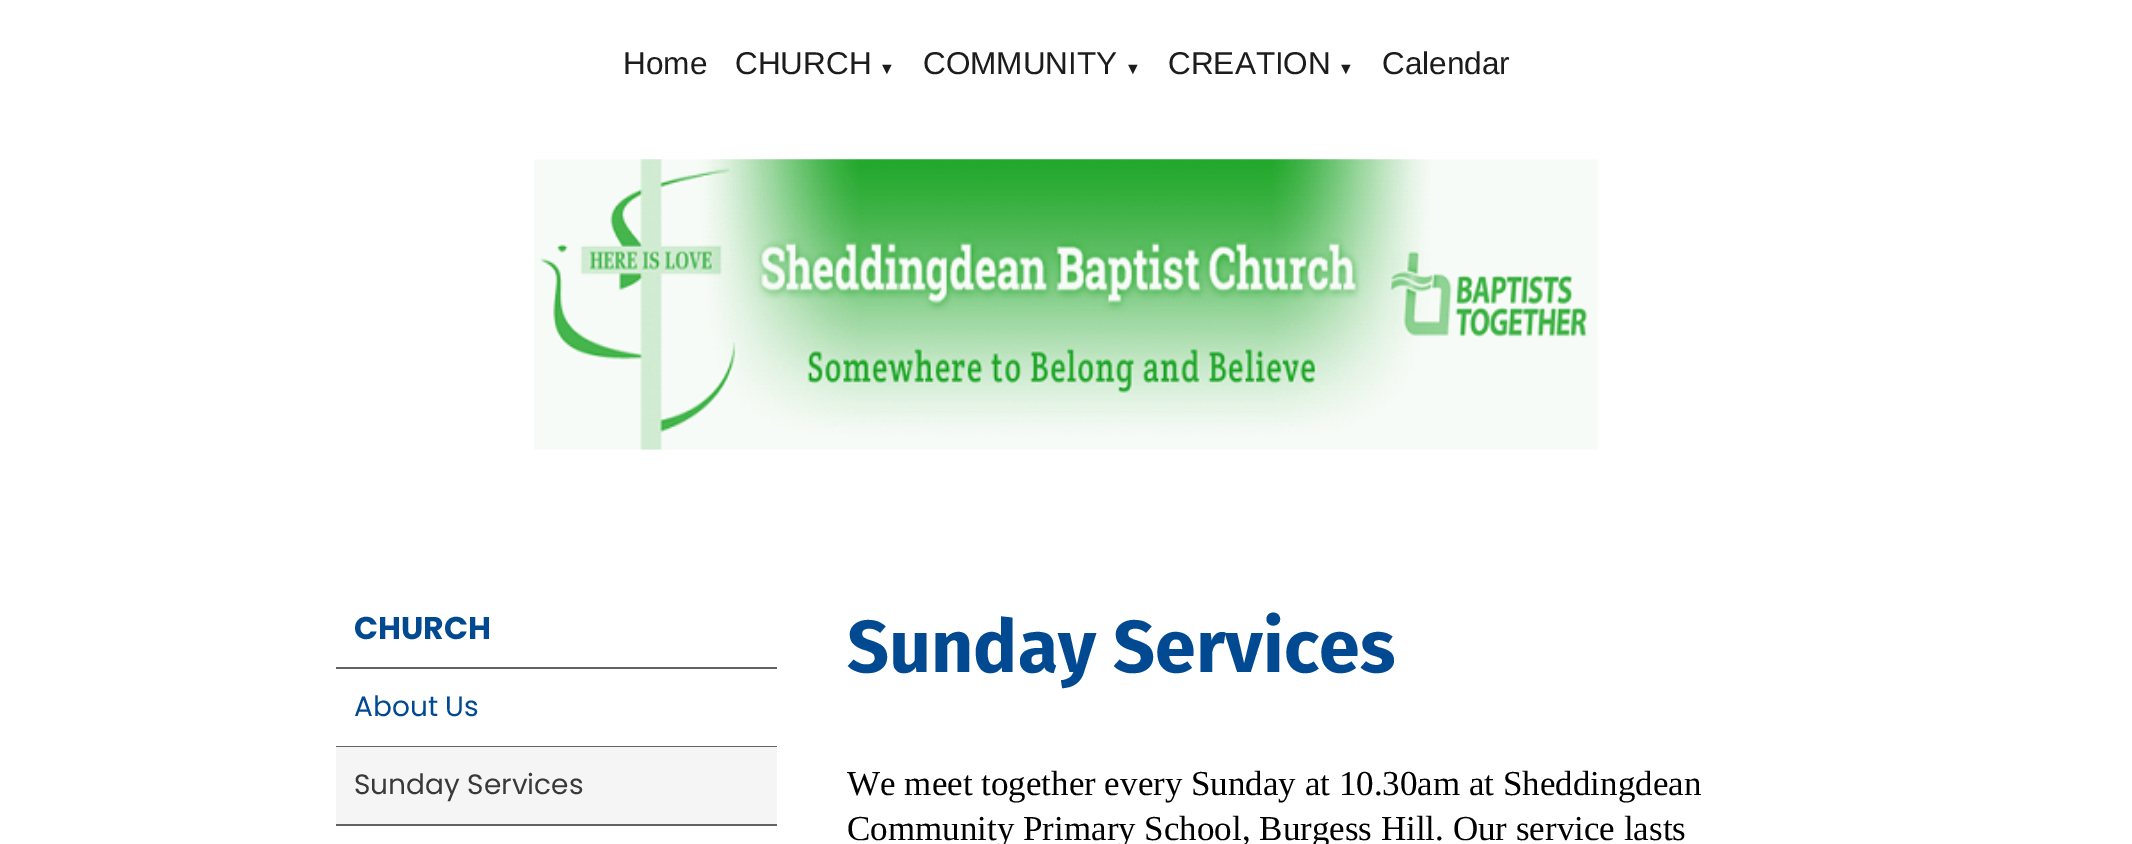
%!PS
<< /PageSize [2132 844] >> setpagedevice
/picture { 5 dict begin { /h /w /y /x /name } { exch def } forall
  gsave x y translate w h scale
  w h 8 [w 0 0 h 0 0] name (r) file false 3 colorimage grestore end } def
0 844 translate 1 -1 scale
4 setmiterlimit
1 setgray
0 0 2132 844 rectfill
/LiberationSans-Regular [31.5 0 0 -31.5 0 0] selectfont
0.11 setgray
623 74 moveto (Home) show
735 74 moveto (CHURCH) show
/LiberationSerif-Regular [16 0 0 -16 0 0] selectfont
879 74 moveto (▼) show
/LiberationSans-Regular [31.5 0 0 -31.5 0 0] selectfont
923 74 moveto (COMMUNITY) show
/LiberationSerif-Regular [16 0 0 -16 0 0] selectfont
1125 74 moveto (▼) show
/LiberationSans-Regular [31.5 0 0 -31.5 0 0] selectfont
1168 74 moveto (CREATION) show
/LiberationSerif-Regular [16 0 0 -16 0 0] selectfont
1338 74 moveto (▼) show
/LiberationSans-Regular [31.5 0 0 -31.5 0 0] selectfont
1382 74 moveto (Calendar) show
(img1.rgb) 534 159 1064 291 picture
0.384 setgray
336 667 441 2 rectfill
/Poppins-Bold [31.5 0 0 -31.5 0 0] selectfont
0.004 0.286 0.569 setrgbcolor
354 639 moveto (CHURCH) show
0.384 setgray
336 746 441 1 rectfill
/Poppins-Regular [28 0 0 -28 0 0] selectfont
0.004 0.286 0.569 setrgbcolor
354 716 moveto (About Us) show
0.961 setgray
336 747 441 77 rectfill
0.384 setgray
336 824 441 2 rectfill
0.224 setgray
354 794 moveto (Sunday Services) show
/FiraSans-Bold [73.5 0 0 -73.5 0 0] selectfont
0.004 0.286 0.569 setrgbcolor
847 672 moveto (Sunday Services) show
/LiberationSerif-Regular [35 0 0 -35 0 0] selectfont
0 setgray
847 795 moveto (We meet together every Sunday at 10.30am at Sheddingdean) show
847 840 moveto (Community Primary School, Burgess Hill. Our service lasts) show
showpage
